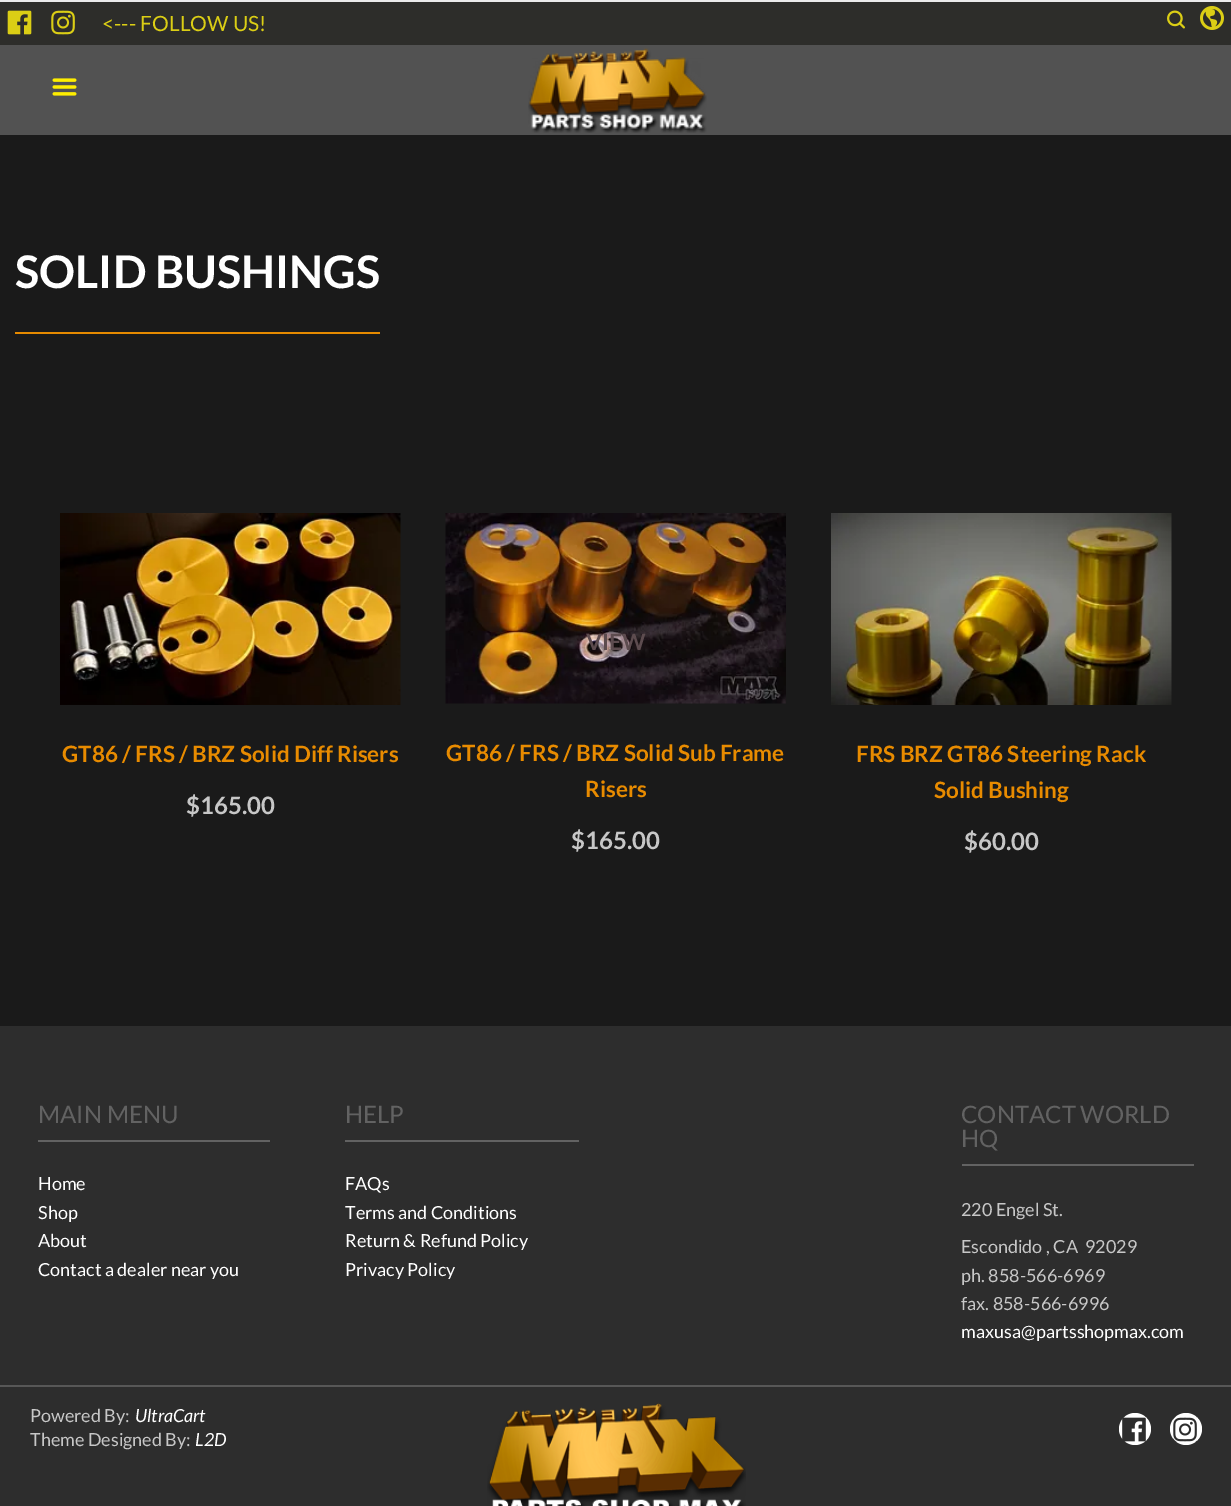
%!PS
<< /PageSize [1231 1506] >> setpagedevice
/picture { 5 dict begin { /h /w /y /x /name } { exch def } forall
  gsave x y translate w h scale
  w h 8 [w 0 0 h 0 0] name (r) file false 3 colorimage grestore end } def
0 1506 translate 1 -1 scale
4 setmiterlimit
0.102 setgray
0 0 1231 1506 rectfill
0.922 setgray
0 0 1231 2 rectfill
0.176 0.176 0.165 setrgbcolor
0 2 1231 43 rectfill
(img1.rgb) 7 10 25 25 picture
(img2.rgb) 51 10 24 25 picture
/Lato-Regular [21 0 0 -21 0 0] selectfont
0.859 0.808 0.082 setrgbcolor
102 31 moveto (<--- FOLLOW US!) show
(img3.rgb) 1167 10 18 19 picture
(img4.rgb) 1200 6 24 24 picture
0.322 setgray
0 45 1231 90 rectfill
(img5.rgb) 52 78 25 18 picture
(img6.rgb) 528 48 179 85 picture
0.902 0.541 0 setrgbcolor
15 332 365 2 rectfill
/Lato-Bold [45 0 0 -45 0 0] selectfont
1 setgray
15 288 moveto (SOLID BUSHINGS) show
(img7.rgb) 60 513 341 192 picture
/Lato-Bold [22.5 0 0 -22.5 0 0] selectfont
0.91 0.545 0 setrgbcolor
62 762 moveto (GT86 / FRS / BRZ Solid Diff Risers) show
/Lato-Bold [24 0 0 -24 0 0] selectfont
0.78 setgray
186 814 moveto ($165.00) show
(img8.rgb) 445 513 341 191 picture
/Lato-Bold [22.5 0 0 -22.5 0 0] selectfont
0.365 0.298 0.31 setrgbcolor
586 650 moveto (VIEW) show
0.91 0.545 0 setrgbcolor
446 761 moveto (GT86 / FRS / BRZ Solid Sub Frame) show
585 797 moveto (Risers) show
/Lato-Bold [24 0 0 -24 0 0] selectfont
0.78 setgray
571 849 moveto ($165.00) show
(img9.rgb) 831 513 341 192 picture
/Lato-Bold [22.5 0 0 -22.5 0 0] selectfont
0.91 0.545 0 setrgbcolor
856 762 moveto (FRS BRZ GT86 Steering Rack) show
934 798 moveto (Solid Bushing) show
/Lato-Bold [24 0 0 -24 0 0] selectfont
0.78 setgray
964 850 moveto ($60.00) show
0.176 setgray
0 1026 1231 480 rectfill
0.384 setgray
38 1140 232 2 rectfill
/Lato-Regular [24 0 0 -24 0 0] selectfont
38 1123 moveto (MAIN MENU) show
/Lato-Regular [18 0 0 -18 0 0] selectfont
1 setgray
38 1190 moveto (Home) show
38 1219 moveto (Shop) show
38 1247 moveto (About) show
38 1276 moveto (Contact a dealer near you) show
0.384 setgray
345 1140 234 2 rectfill
/Lato-Regular [24 0 0 -24 0 0] selectfont
345 1123 moveto (HELP) show
/Lato-Regular [18 0 0 -18 0 0] selectfont
1 setgray
345 1190 moveto (FAQs) show
345 1219 moveto (Terms and Conditions) show
345 1247 moveto (Return & Refund Policy) show
345 1276 moveto (Privacy Policy) show
0.384 setgray
962 1164 232 2 rectfill
/Lato-Regular [24 0 0 -24 0 0] selectfont
961 1123 moveto (CONTACT WORLD) show
961 1147 moveto (HQ) show
/Lato-Regular [18 0 0 -18 0 0] selectfont
0.78 setgray
961 1216 moveto (220 Engel St.) show
961 1253 moveto (Escondido , CA) show
1085 1253 moveto (92029) show
961 1282 moveto (ph. 858-566-6969) show
961 1310 moveto (fax. 858-566-6996) show
1 setgray
961 1338 moveto (maxusa@partsshopmax.com) show
0.341 setgray
0 1385 1231 2 rectfill
0.78 setgray
30 1422 moveto (Powered By:) show
/Lato-Italic [18 0 0 -18 0 0] selectfont
1 setgray
135 1422 moveto (UltraCart) show
/Lato-Regular [18 0 0 -18 0 0] selectfont
0.78 setgray
30 1446 moveto (Theme Designed By:) show
/Lato-Italic [18 0 0 -18 0 0] selectfont
1 setgray
195 1446 moveto (L2D) show
(img10.rgb) 487 1403 259 103 picture
newpath 1135 1429 16 0 360 arc closepath fill
(img11.rgb) 1122 1417 24 25 picture
newpath 1186 1429 16 0 360 arc closepath fill
(img12.rgb) 1173 1417 24 25 picture
showpage
